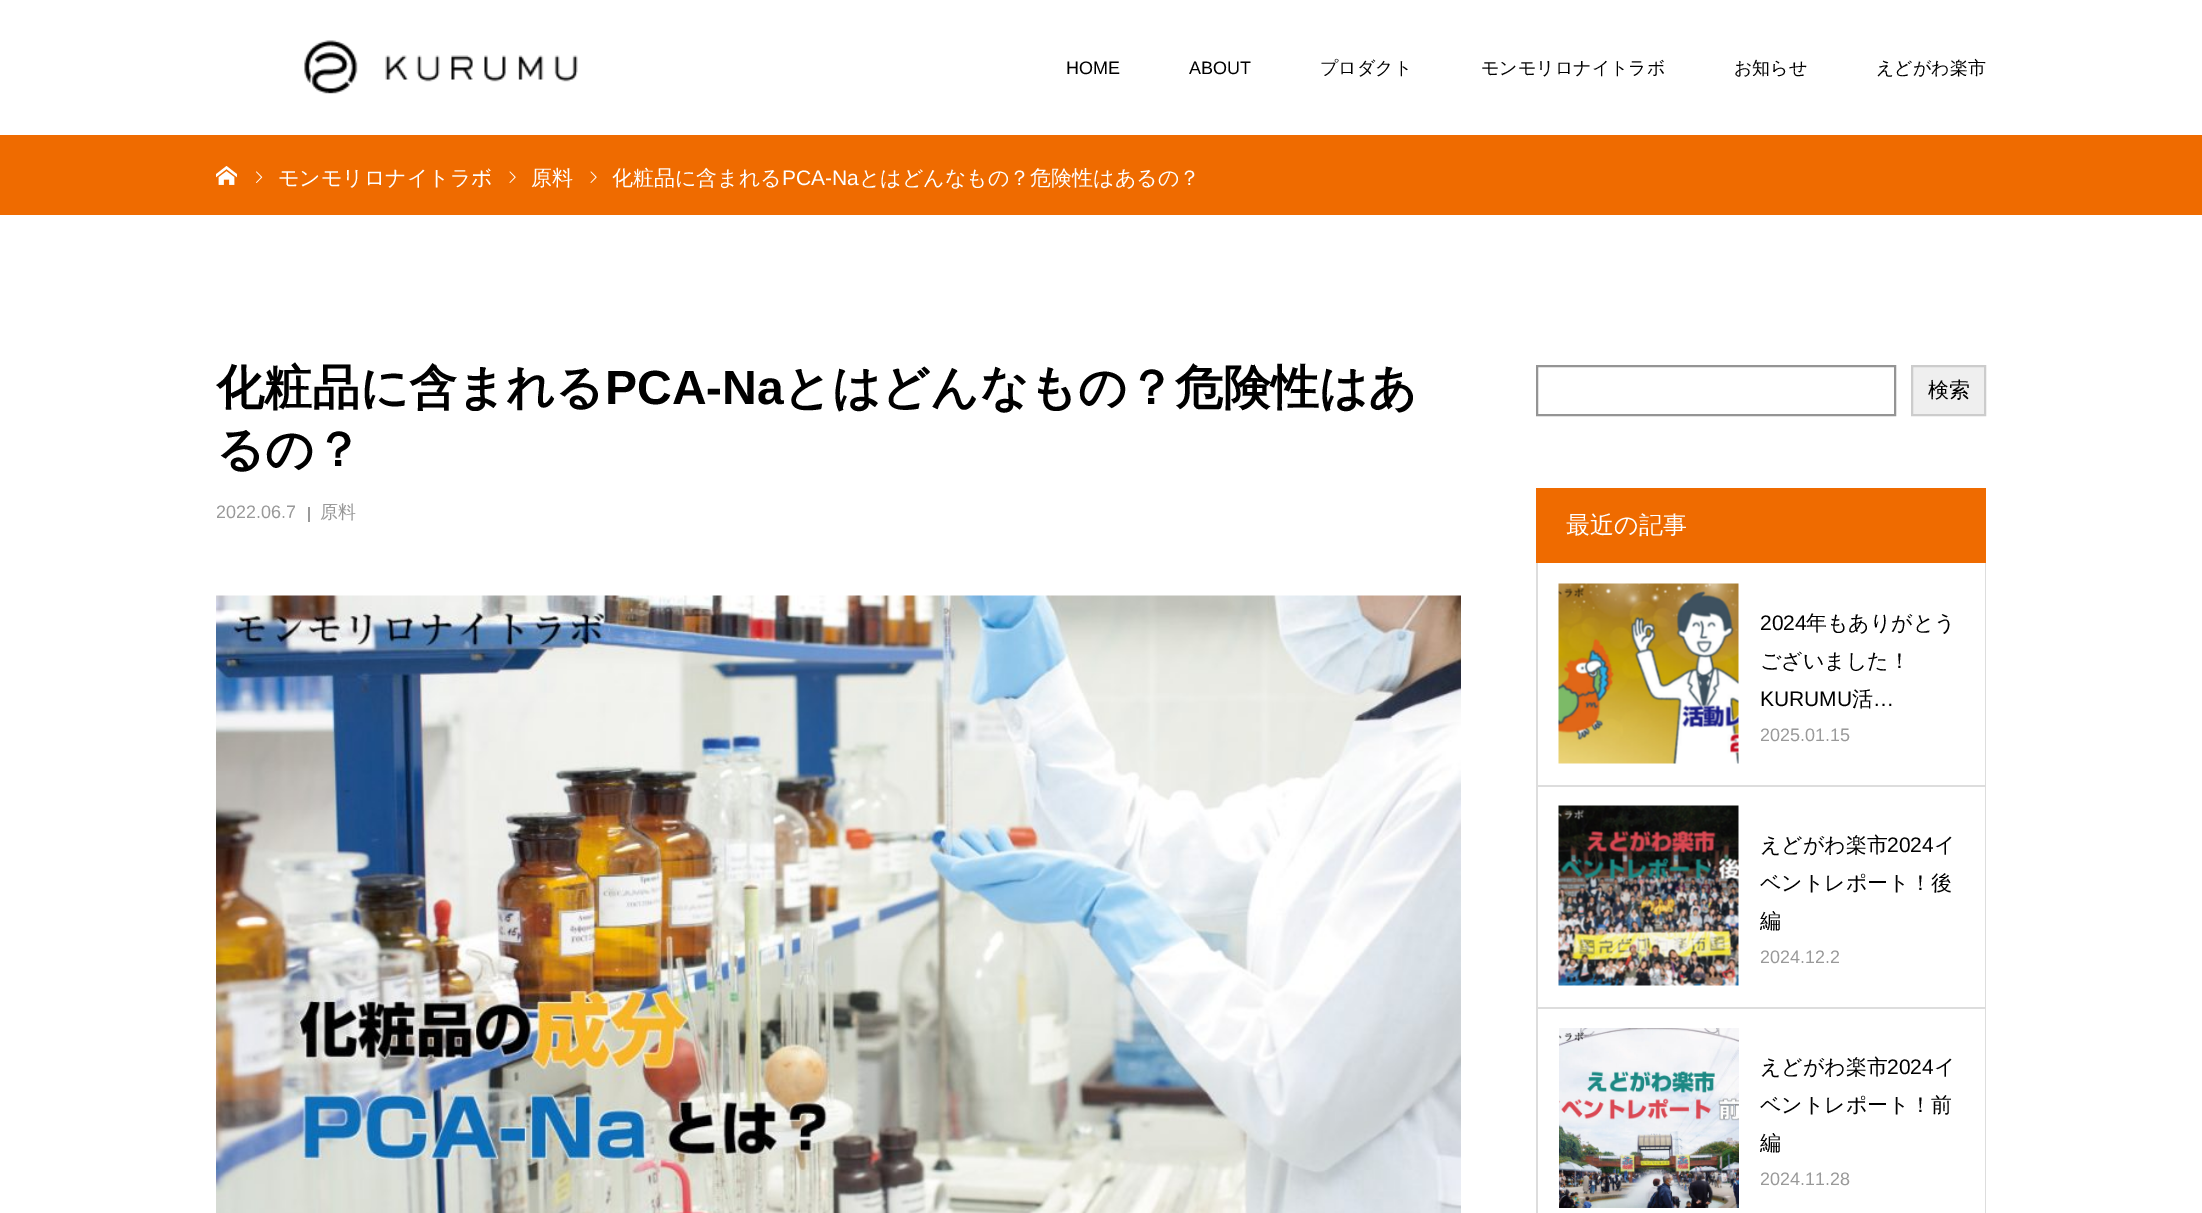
%!PS
<< /PageSize [2202 1213] >> setpagedevice
/picture { 5 dict begin { /h /w /y /x /name } { exch def } forall
  gsave x y translate w h scale
  w h 8 [w 0 0 h 0 0] name (r) file false 3 colorimage grestore end } def
0 1213 translate 1 -1 scale
4 setmiterlimit
1 setgray
0 0 2202 1213 rectfill
(img1.rgb) 304 40 274 54 picture
/LiberationSans-Regular [18 0 0 -18 0 0] selectfont
0 setgray
1066 74 moveto (HOME) show
1189 74 moveto (ABOUT) show
/WenQuanYiZenHei-Medium [18 0 0 -18 0 0] selectfont
1320 74 moveto (プロダクト) show
1481 74 moveto (モンモリロナイトラボ) show
1734 74 moveto (お知らせ) show
1876 74 moveto (えどがわ楽市) show
0.937 0.42 0 setrgbcolor
0 135 2202 80 rectfill
(img2.rgb) 216 166 21 19 picture
(img3.rgb) 256 171 7 12 picture
/WenQuanYiZenHei-Medium [21 0 0 -21 0 0] selectfont
1 setgray
278 185 moveto (モンモリロナイトラボ) show
(img4.rgb) 509 171 7 12 picture
531 185 moveto (原料) show
(img4.rgb) 590 171 7 12 picture
612 185 moveto (化粧品に含まれる) show
/LiberationSans-Regular [21 0 0 -21 0 0] selectfont
782 185 moveto (PCA-Na) show
/WenQuanYiZenHei-Medium [21 0 0 -21 0 0] selectfont
859 185 moveto (とはどんなもの？危険性はあるの？) show
/WenQuanYiZenHei-Bold [48 0 0 -48 0 0] selectfont
0 setgray
216 404 moveto (化粧品に含まれる) show
/LiberationSans-Bold [48 0 0 -48 0 0] selectfont
605 404 moveto (PCA-Na) show
/WenQuanYiZenHei-Bold [48 0 0 -48 0 0] selectfont
783 404 moveto (とはどんなもの？危険性はあ) show
216 466 moveto (るの？) show
/LiberationSans-Regular [18 0 0 -18 0 0] selectfont
0.6 setgray
216 518 moveto (2022.06.7) show
308 507 2 15 rectfill
/WenQuanYiZenHei-Medium [18 0 0 -18 0 0] selectfont
320 518 moveto (原料) show
(img5.rgb) 216 595 1245 618 picture
0.58 setgray
2 setlinewidth
1537 366 358 49 rectstroke
0.937 setgray
newpath 1912 366 moveto 1985 366 lineto 1985 415 lineto 1912 415 lineto closepath gsave fill grestore
0.8 setgray
stroke
/WenQuanYiZenHei-Medium [21 0 0 -21 0 0] selectfont
0 setgray
1928 397 moveto (検索) show
0.937 0.42 0 setrgbcolor
1536 488 450 75 rectfill
/WenQuanYiZenHei-Medium [24 0 0 -24 0 0] selectfont
1 setgray
1566 533 moveto (最近の記事) show
0.867 setgray
1985 563 1 650 rectfill
1536 563 2 650 rectfill
1538 785 447 2 rectfill
(img6.rgb) 1558 583 181 181 picture
/LiberationSans-Regular [21 0 0 -21 0 0] selectfont
0 setgray
1760 630 moveto (2024) show
/WenQuanYiZenHei-Medium [21 0 0 -21 0 0] selectfont
1806 630 moveto (年もありがとう) show
1760 668 moveto (ございました！) show
/LiberationSans-Regular [21 0 0 -21 0 0] selectfont
1760 706 moveto (KURUMU) show
/WenQuanYiZenHei-Medium [21 0 0 -21 0 0] selectfont
1852 706 moveto (活) show
/LiberationSans-Regular [21 0 0 -21 0 0] selectfont
1873 706 moveto (…) show
/LiberationSans-Regular [18 0 0 -18 0 0] selectfont
0.6 setgray
1760 741 moveto (2025.01.15) show
0.867 setgray
1538 1007 447 2 rectfill
(img7.rgb) 1558 805 181 181 picture
/WenQuanYiZenHei-Medium [21 0 0 -21 0 0] selectfont
0 setgray
1760 852 moveto (えどがわ楽市) show
/LiberationSans-Regular [21 0 0 -21 0 0] selectfont
1887 852 moveto (2024) show
/WenQuanYiZenHei-Medium [21 0 0 -21 0 0] selectfont
1934 852 moveto (イ) show
1760 890 moveto (ベントレポート！後) show
1760 928 moveto (編) show
/LiberationSans-Regular [18 0 0 -18 0 0] selectfont
0.6 setgray
1760 963 moveto (2024.12.2) show
(img8.rgb) 1559 1028 180 180 picture
/WenQuanYiZenHei-Medium [21 0 0 -21 0 0] selectfont
0 setgray
1760 1074 moveto (えどがわ楽市) show
/LiberationSans-Regular [21 0 0 -21 0 0] selectfont
1887 1074 moveto (2024) show
/WenQuanYiZenHei-Medium [21 0 0 -21 0 0] selectfont
1934 1074 moveto (イ) show
1760 1112 moveto (ベントレポート！前) show
1760 1150 moveto (編) show
/LiberationSans-Regular [18 0 0 -18 0 0] selectfont
0.6 setgray
1760 1185 moveto (2024.11.28) show
showpage
